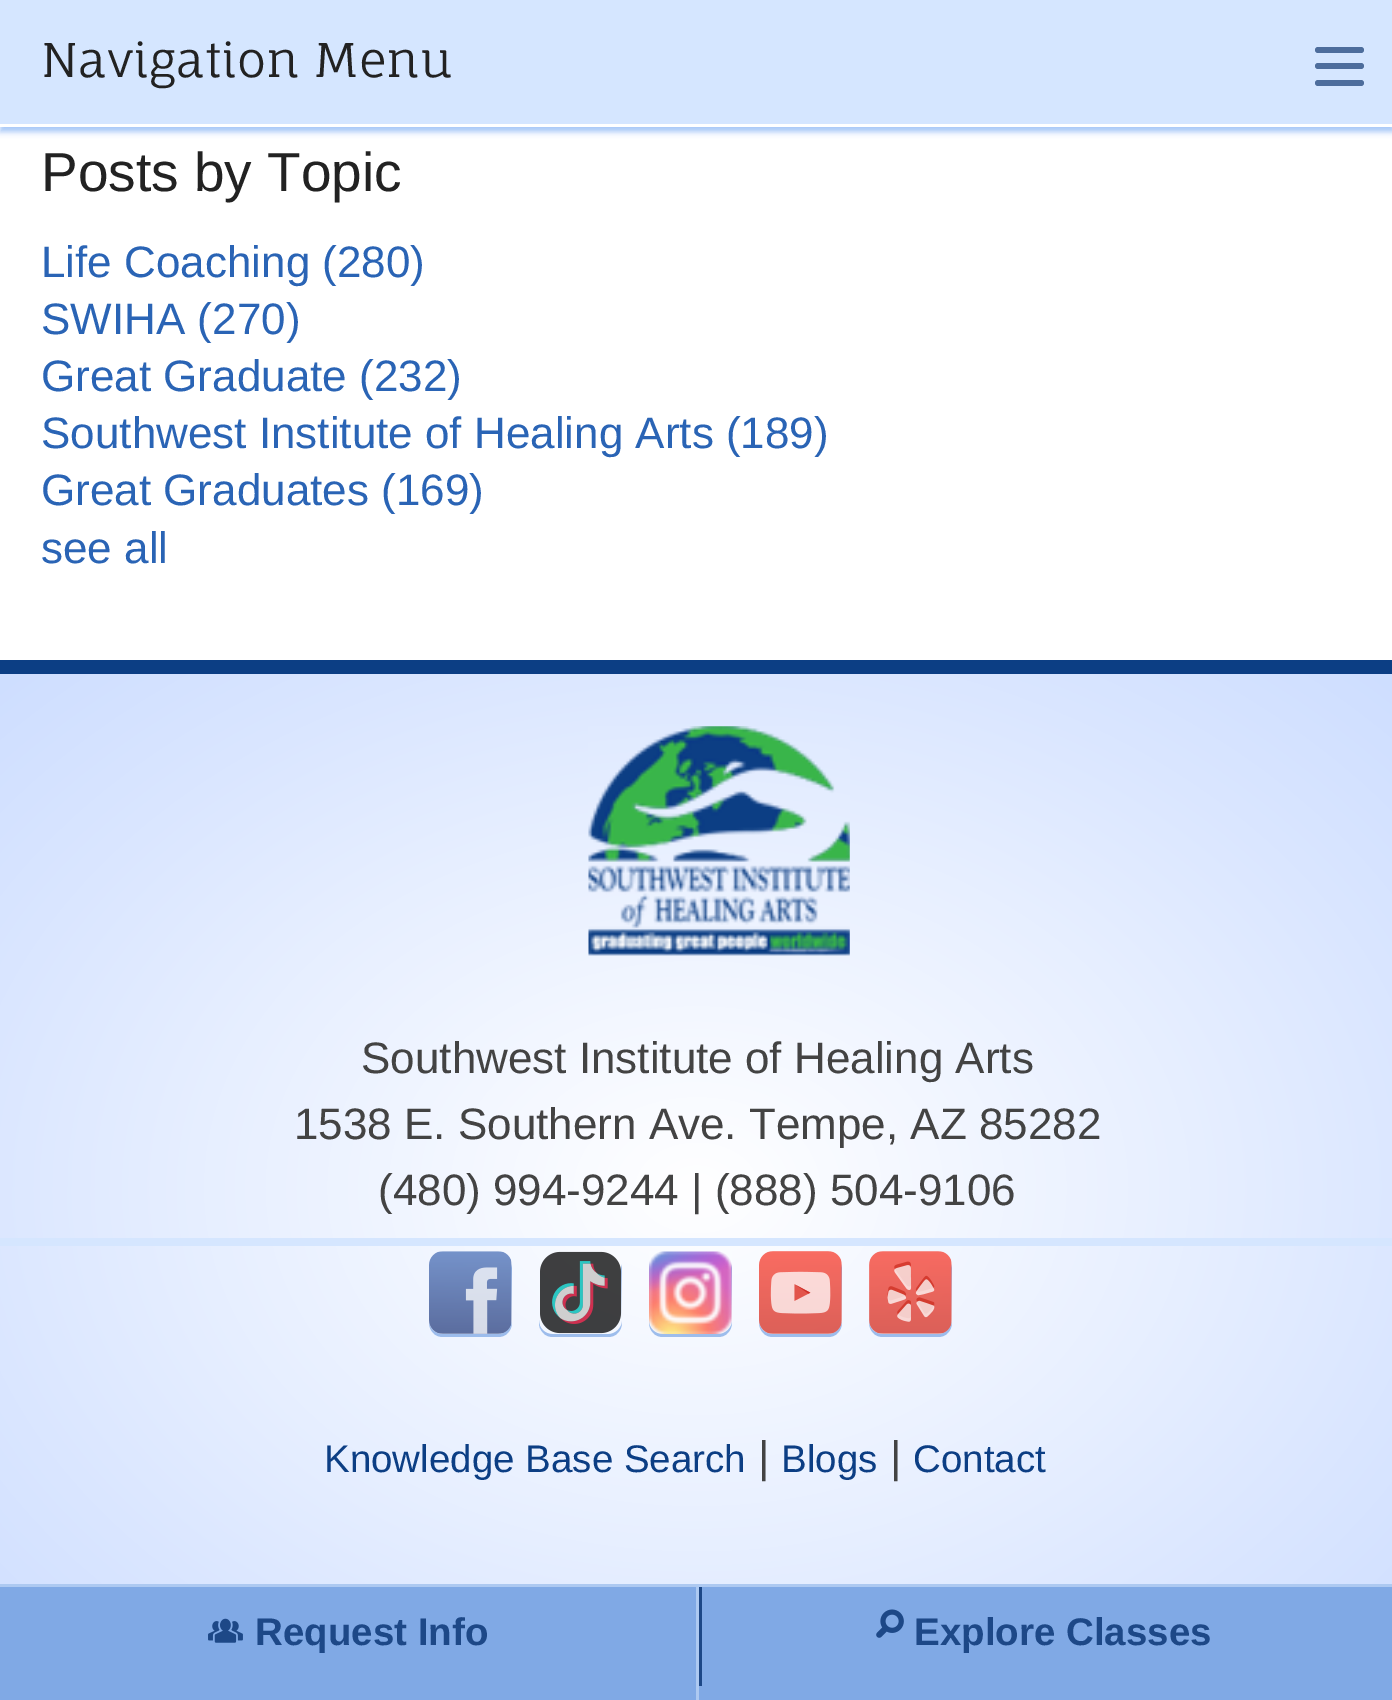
%!PS
<< /PageSize [1392 1700] /PageUsesTransparency true >> setpagedevice
/alpha { dup .setfillconstantalpha .setstrokeconstantalpha } def
/roundrect { 5 dict begin { /r /h /w /y /x } { exch def } forall
  x r add y moveto x w add y 2 copy h add r arct x w add y h add x 1 index r arct
  x y h add x y r arct x y 2 copy exch w add exch r arct closepath end } def
/shadow { 12 dict begin { /a /b /q /h /w /y /x } { exch def } forall gsave /was 0 def
  9 -2 -9 { dup b mul 4 div /e exch def 1 sub .425 mul 2.718 exch exp 1 add a .99 .min exch div /now exch def
    1 1 now sub 1 was sub div sub alpha /was now def
    w h .min e 2 mul add 0 gt { x e sub y e sub w e 2 mul add h e 2 mul add
      q e add b .6 mul add w h .min 2 div e add .min 0 .max roundrect fill } if } for grestore end } def
/picture { 5 dict begin { /h /w /y /x /name } { exch def } forall
  gsave x y translate w h scale
  w h 8 [w 0 0 h 0 0] name (r) file false 3 colorimage grestore end } def
0 .pushpdf14devicefilter
0 1700 translate 1 -1 scale
4 setmiterlimit
1 setgray
0 0 1392 1700 rectfill
0.647 0.776 0.969 setrgbcolor
0 6 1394 126 0 3 1 shadow
0.835 0.902 1 setrgbcolor
0 0 1392 124 rectfill
1 setgray
0 124 1392 3 rectfill
/FaunaOne-Regular [46.75 0 0 -46.75 0 0] selectfont
0.133 setgray
41 77 moveto (Navigation Menu) show
0.302 0.427 0.612 setrgbcolor
1315 63 49 6 3 roundrect fill
1315 47 49 6 3 roundrect fill
1315 80 49 6 3 roundrect fill
/LiberationSans-Regular [55 0 0 -55 0 0] selectfont
0.133 setgray
41 191 moveto (Posts by Topic) show
/LiberationSans-Regular [44 0 0 -44 0 0] selectfont
0.165 0.392 0.71 setrgbcolor
41 277 moveto (Life Coaching \(280\)) show
41 334 moveto (SWIHA \(270\)) show
41 391 moveto (Great Graduate \(232\)) show
41 448 moveto (Southwest Institute of Healing Arts \(189\)) show
41 505 moveto (Great Graduates \(169\)) show
41 563 moveto (see all) show
gsave newpath 0 674 moveto 1392 674 lineto 1392 1584 lineto 0 1584 lineto closepath clip newpath 697 1188 translate 986 727 scale
<< /ShadingType 3 /ColorSpace /DeviceRGB /Coords [0 0 0 0 0 1] /Extend [true true] /Function << /FunctionType 2 /Domain [0 1] /C0 [1 1 1] /C1 [0.808 0.871 1] /N 1 >> >> shfill grestore
0.047 0.243 0.518 setrgbcolor
0 660 1392 14 rectfill
0.835 0.902 1 setrgbcolor
0 1238 1392 8 rectfill
(img1.rgb) 588 726 262 230 picture
0.263 setgray
361 1073 moveto (Southwest Institute of Healing Arts) show
294 1139 moveto (1538 E. Southern Ave. Tempe, AZ 85282) show
378 1205 moveto (\(480\) 994-9244 | \(888\) 504-9106) show
0.75 alpha
0.502 0.663 0.898 setrgbcolor
newpath 429 1320 moveto 429 1323 lineto 429 1331 435 1337 443 1337 curveto 498 1337 lineto 506 1337 512 1331 512 1323 curveto 512 1268 lineto 511 1264 lineto 512 1320 lineto 512 1328 505 1334 498 1334 curveto 443 1334 lineto 435 1334 429 1328 429 1320 curveto closepath fill
1 alpha
(img2.rgb) 429 1251 83 83 picture
0.75 alpha
newpath 539 1320 moveto 539 1323 lineto 539 1331 545 1337 553 1337 curveto 608 1337 lineto 616 1337 622 1331 622 1323 curveto 622 1268 lineto 621 1264 lineto 622 1320 lineto 622 1328 615 1334 608 1334 curveto 553 1334 lineto 545 1334 539 1328 539 1320 curveto closepath fill
1 alpha
(img3.rgb) 540 1251 82 83 picture
0.75 alpha
newpath 649 1320 moveto 649 1323 lineto 649 1331 655 1337 663 1337 curveto 718 1337 lineto 726 1337 732 1331 732 1323 curveto 732 1268 lineto 731 1264 lineto 732 1320 lineto 732 1328 725 1334 718 1334 curveto 663 1334 lineto 655 1334 649 1328 649 1320 curveto closepath fill
1 alpha
(img4.rgb) 649 1251 83 83 picture
0.75 alpha
newpath 759 1320 moveto 759 1323 lineto 759 1331 765 1337 773 1337 curveto 828 1337 lineto 836 1337 842 1331 842 1323 curveto 842 1268 lineto 841 1264 lineto 842 1320 lineto 842 1328 835 1334 828 1334 curveto 773 1334 lineto 765 1334 759 1328 759 1320 curveto closepath fill
1 alpha
(img5.rgb) 759 1251 83 83 picture
0.75 alpha
newpath 869 1320 moveto 869 1323 lineto 869 1331 875 1337 883 1337 curveto 938 1337 lineto 946 1337 952 1331 952 1323 curveto 952 1268 lineto 951 1264 lineto 952 1320 lineto 952 1328 945 1334 938 1334 curveto 883 1334 lineto 875 1334 869 1328 869 1320 curveto closepath fill
1 alpha
(img6.rgb) 869 1251 83 83 picture
/LiberationSans-Regular [38.5 0 0 -38.5 0 0] selectfont
0.047 0.243 0.518 setrgbcolor
324 1472 moveto (Knowledge Base Search) show
/LiberationSans-Regular [44 0 0 -44 0 0] selectfont
0.263 setgray
758 1472 moveto (|) show
/LiberationSans-Regular [38.5 0 0 -38.5 0 0] selectfont
0.047 0.243 0.518 setrgbcolor
781 1472 moveto (Blogs) show
/LiberationSans-Regular [44 0 0 -44 0 0] selectfont
0.263 setgray
890 1472 moveto (|) show
/LiberationSans-Regular [38.5 0 0 -38.5 0 0] selectfont
0.047 0.243 0.518 setrgbcolor
913 1472 moveto (Contact) show
0.502 0.663 0.898 setrgbcolor
0 1587 1392 113 rectfill
0.678 0.788 0.945 setrgbcolor
0 1584 1392 3 rectfill
696 1587 3 113 rectfill
(img7.rgb) 208 1618 35 25 picture
/LiberationSans-Bold [38.5 0 0 -38.5 0 0] selectfont
0.114 0.282 0.529 setrgbcolor
255 1645 moveto (Request Info) show
699 1587 3 99 rectfill
(img8.rgb) 876 1609 28 29 picture
914 1645 moveto (Explore Classes) show
.poppdf14devicefilter showpage
